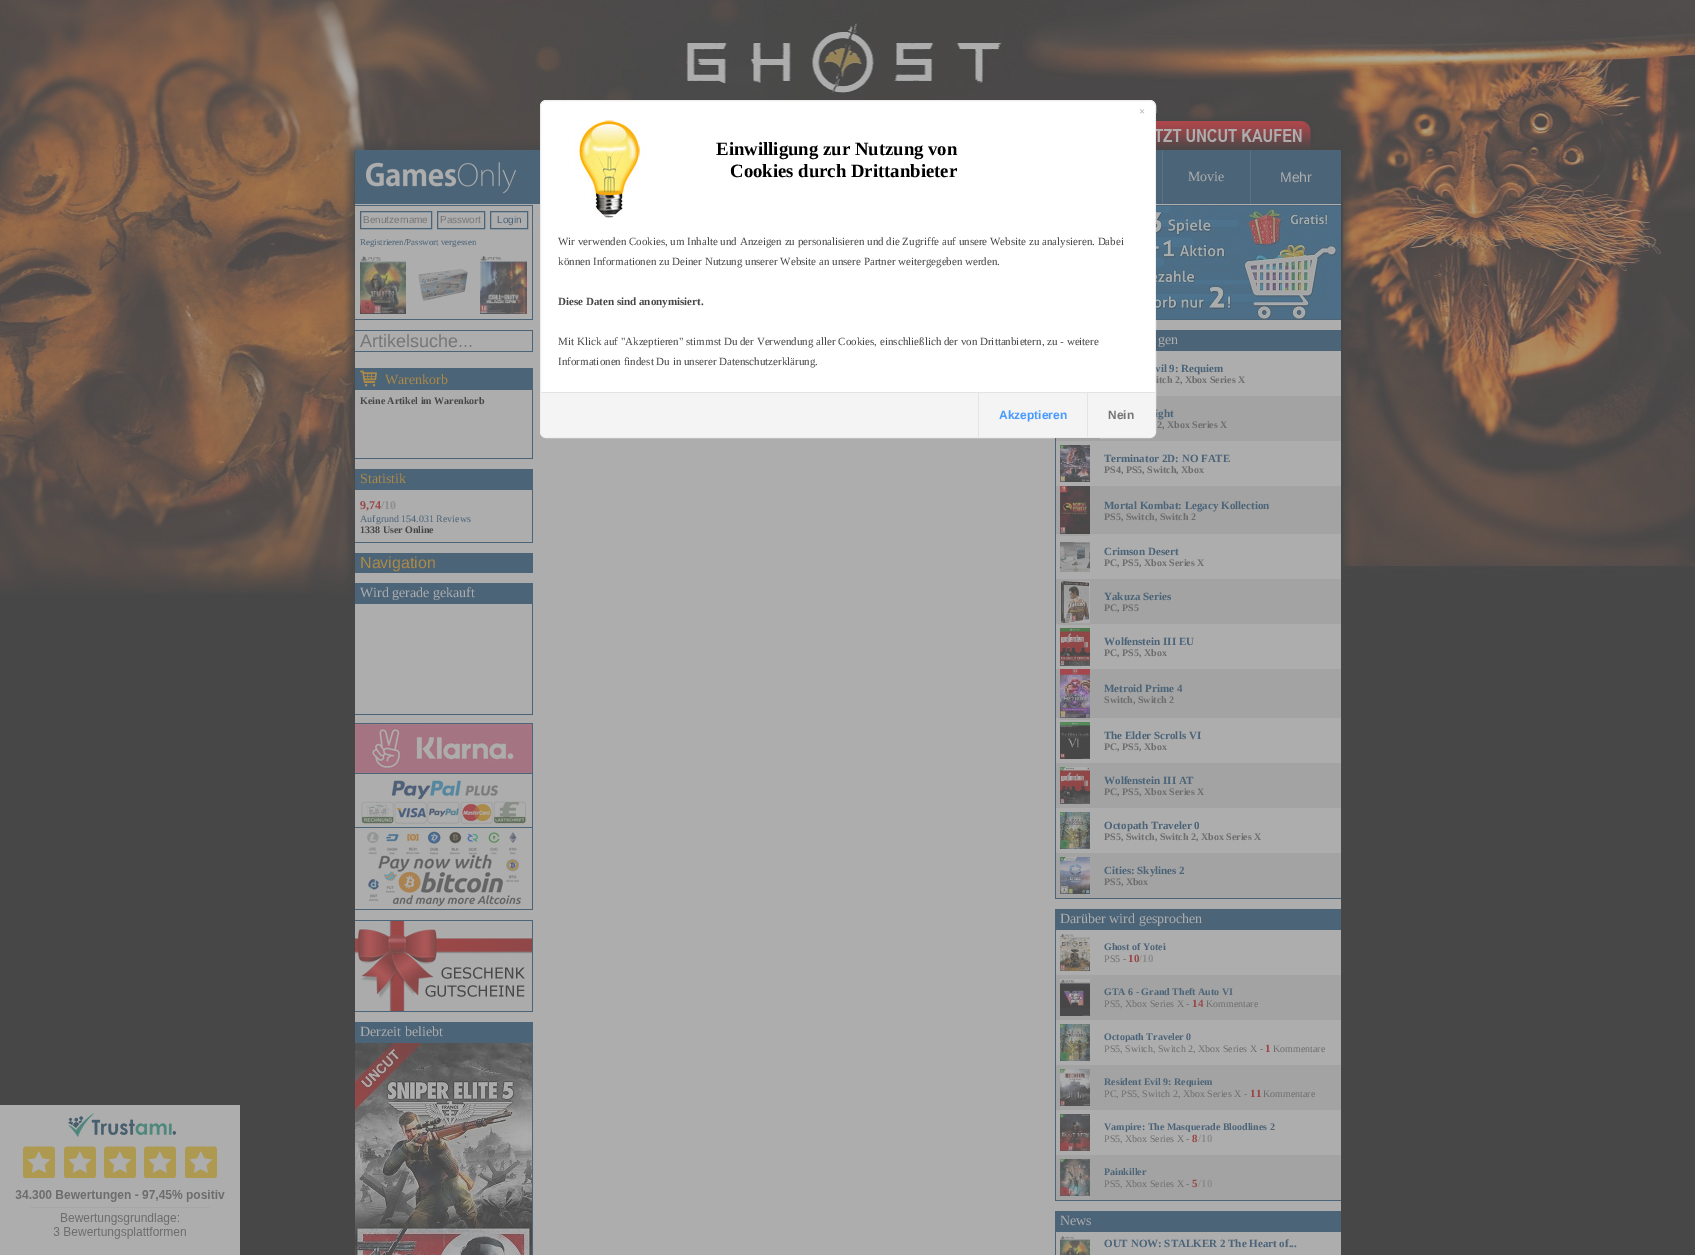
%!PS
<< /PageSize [1695 1255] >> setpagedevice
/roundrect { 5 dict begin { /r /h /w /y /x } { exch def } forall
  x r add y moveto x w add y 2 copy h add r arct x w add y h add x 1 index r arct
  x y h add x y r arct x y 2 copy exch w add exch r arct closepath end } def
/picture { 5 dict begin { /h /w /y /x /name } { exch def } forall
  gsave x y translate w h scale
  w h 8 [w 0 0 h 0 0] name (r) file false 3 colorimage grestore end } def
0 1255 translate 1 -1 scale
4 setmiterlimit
0.278 setgray
0 0 1695 1255 rectfill
(img1.rgb) 0 0 1695 594 picture
0.678 setgray
355 204 986 1051 rectfill
/LiberationSerif-Bold [11 0 0 -11 0 0] selectfont
0.294 0.392 0.471 setrgbcolor
1155 372 moveto (vil 9: Requiem) show
0.639 setgray
1100 396 241 45 rectfill
0.294 0.392 0.471 setrgbcolor
1155 417 moveto (ight) show
1 setgray
540.5 100.5 615 337 5.5 roundrect gsave fill grestore
0.933 setgray
stroke
0.733 setgray
1139 115 moveto (×) show
(img2.rgb) 575 119 72 99 picture
/LiberationSerif-Bold [18.75 0 0 -18.75 0 0] selectfont
0 setgray
716 155 moveto (Einwilligung zur Nutzung von) show
730 177 moveto (Cookies durch Drittanbieter) show
/LiberationSerif-Regular [11 0 0 -11 0 0] selectfont
0.278 setgray
558 245 moveto (Wir verwenden Cookies, um Inhalte und Anzeigen zu personalisieren und die Zugriffe auf unsere Website zu analysieren. Dabei) show
558 265 moveto (können Informationen zu Deiner Nutzung unserer Website an unsere Partner weitergegeben werden.) show
/LiberationSerif-Bold [11 0 0 -11 0 0] selectfont
558 305 moveto (Diese Daten sind anonymisiert.) show
/LiberationSerif-Regular [11 0 0 -11 0 0] selectfont
558 345 moveto (Mit Klick auf "Akzeptieren" stimmst Du der Verwendung aller Cookies, einschließlich der von Drittanbietern, zu - weitere) show
558 365 moveto (Informationen findest Du in unserer Datenschutzerklärung.) show
0.957 setgray
newpath 541 392 moveto 1155 392 lineto 1155 431 lineto 1155 434.5 1152.5 437 1149 437 curveto 547 437 lineto 543.5 437 541 434.5 541 431 curveto closepath fill
0.894 setgray
541 392 614 1 rectfill
978 393 1 44 rectfill
/LiberationSans-Bold [12 0 0 -12 0 0] selectfont
0.282 0.604 0.996 setrgbcolor
999 419 moveto (Akzeptieren) show
0.894 setgray
1087 393 1 44 rectfill
0.463 setgray
1108 419 moveto (Nein) show
(img3.rgb) 1156 113 158 37 picture
(img4.rgb) 0 1105 240 150 picture
(img5.rgb) 355 150 185 54 picture
0.294 0.392 0.471 setrgbcolor
1156 150 6 54 rectfill
1163 150 87 54 rectfill
0.353 0.439 0.525 setrgbcolor
1162 150 1 54 rectfill
/LiberationSerif-Regular [14 0 0 -14 0 0] selectfont
0.678 setgray
1188 181 moveto (Movie) show
0.294 0.392 0.471 setrgbcolor
1251 150 90 54 rectfill
0.353 0.439 0.525 setrgbcolor
1250 150 1 54 rectfill
/LiberationSans-Regular [14 0 0 -14 0 0] selectfont
0.678 setgray
1280 182 moveto (Mehr) show
0.294 0.392 0.471 setrgbcolor
355 205 178 1 rectfill
532 205 1 115 rectfill
355 319 178 1 rectfill
360.5 211.5 71 17 rectstroke
/LiberationSans-Regular [10 0 0 -10 0 0] selectfont
0.463 setgray
363 223 moveto (Benutzername) show
0.294 0.392 0.471 setrgbcolor
437.5 211.5 47 17 rectstroke
0.463 setgray
440 223 moveto (Passwort) show
0.294 0.392 0.471 setrgbcolor
490.5 211.5 37 17 rectstroke
497 223 moveto (Login) show
/LiberationSerif-Regular [9 0 0 -9 0 0] selectfont
360 245 moveto (Registrieren Passwort vergessen) show
0.278 setgray
404 245 moveto (/) show
(img6.rgb) 360 256 46 58 picture
(img7.rgb) 418 269 50 32 picture
(img8.rgb) 480 256 47 58 picture
0.294 0.392 0.471 setrgbcolor
355 330 178 1 rectfill
532 330 1 22 rectfill
355 351 178 1 rectfill
/LiberationSans-Regular [18 0 0 -18 0 0] selectfont
0.463 setgray
360 347 moveto (Artikelsuche...) show
0.294 0.392 0.471 setrgbcolor
355 368 178 22 rectfill
(img9.rgb) 360 370 17 17 picture
/LiberationSerif-Regular [14 0 0 -14 0 0] selectfont
0.678 0.537 0.278 setrgbcolor
385 384 moveto (Warenkorb) show
0.294 0.392 0.471 setrgbcolor
532 389 1 70 rectfill
355 458 178 1 rectfill
/LiberationSerif-Bold [10 0 0 -10 0 0] selectfont
0.278 setgray
360 404 moveto (Keine Artikel im Warenkorb) show
0.294 0.392 0.471 setrgbcolor
355 469 178 21 rectfill
/LiberationSerif-Regular [14 0 0 -14 0 0] selectfont
0.678 0.537 0.278 setrgbcolor
360 483 moveto (Statistik) show
0.294 0.392 0.471 setrgbcolor
532 489 1 54 rectfill
355 542 178 1 rectfill
/LiberationSerif-Bold [12 0 0 -12 0 0] selectfont
0.6 0.278 0.278 setrgbcolor
360 509 moveto (9,74) show
0.557 setgray
381 509 moveto (/10) show
/LiberationSerif-Regular [10 0 0 -10 0 0] selectfont
0.294 0.392 0.471 setrgbcolor
360 522 moveto (Aufgrund 154.031 Reviews) show
/LiberationSerif-Bold [10 0 0 -10 0 0] selectfont
0.278 setgray
360 533 moveto (1338 User Online) show
0.294 0.392 0.471 setrgbcolor
355 553 178 20 rectfill
/LiberationSans-Regular [16 0 0 -16 0 0] selectfont
0.678 0.537 0.278 setrgbcolor
360 568 moveto (Navigation) show
0.294 0.392 0.471 setrgbcolor
355 583 178 21 rectfill
/LiberationSerif-Regular [14 0 0 -14 0 0] selectfont
0.678 setgray
360 597 moveto (Wird gerade gekauft) show
0.294 0.392 0.471 setrgbcolor
532 603 1 112 rectfill
355 714 178 1 rectfill
355 723 178 1 rectfill
532 723 1 187 rectfill
355 909 178 1 rectfill
(img10.rgb) 355 724 177 183 picture
355 920 178 1 rectfill
532 920 1 92 rectfill
355 1011 178 1 rectfill
(img11.rgb) 355 921 177 90 picture
355 1022 178 21 rectfill
0.678 setgray
360 1036 moveto (Derzeit beliebt) show
0.294 0.392 0.471 setrgbcolor
532 1042 1 213 rectfill
(img12.rgb) 355 1043 177 212 picture
1156 205 185 1 rectfill
1156 319 185 1 rectfill
(img13.rgb) 1156 206 185 113 picture
1156 330 185 21 rectfill
0.678 setgray
1158 344 moveto (gen) show
0.294 0.392 0.471 setrgbcolor
1055 898 286 1 rectfill
1055 438 1 461 rectfill
/LiberationSerif-Bold [10 0 0 -10 0 0] selectfont
0.427 setgray
1156 383 moveto (itch 2, Xbox Series X) show
1157 428 moveto (2, Xbox Series X) show
0.639 setgray
1056 438 44 3 rectfill
(img14.rgb) 1060 445 30 37 picture
/LiberationSerif-Bold [11 0 0 -11 0 0] selectfont
0.294 0.392 0.471 setrgbcolor
1104 462 moveto (Terminator 2D: NO FATE) show
/LiberationSerif-Bold [10 0 0 -10 0 0] selectfont
0.427 setgray
1104 473 moveto (PS4, PS5, Switch, Xbox) show
0.639 setgray
1056 486 285 48 rectfill
(img15.rgb) 1060 486 30 48 picture
1060 534 30 2 rectfill
/LiberationSerif-Bold [11 0 0 -11 0 0] selectfont
0.294 0.392 0.471 setrgbcolor
1104 509 moveto (Mortal Kombat: Legacy Kollection) show
/LiberationSerif-Bold [10 0 0 -10 0 0] selectfont
0.427 setgray
1104 520 moveto (PS5, Switch, Switch 2) show
(img16.rgb) 1060 542 30 30 picture
/LiberationSerif-Bold [11 0 0 -11 0 0] selectfont
0.294 0.392 0.471 setrgbcolor
1104 555 moveto (Crimson Desert) show
/LiberationSerif-Bold [10 0 0 -10 0 0] selectfont
0.427 setgray
1104 566 moveto (PC, PS5, Xbox Series X) show
0.639 setgray
1056 579 285 45 rectfill
(img17.rgb) 1060 581 30 42 picture
1060 624 30 1 rectfill
/LiberationSerif-Bold [11 0 0 -11 0 0] selectfont
0.294 0.392 0.471 setrgbcolor
1104 600 moveto (Yakuza Series) show
/LiberationSerif-Bold [10 0 0 -10 0 0] selectfont
0.427 setgray
1104 611 moveto (PC, PS5) show
(img18.rgb) 1060 628 30 38 picture
/LiberationSerif-Bold [11 0 0 -11 0 0] selectfont
0.294 0.392 0.471 setrgbcolor
1104 645 moveto (Wolfenstein III EU) show
/LiberationSerif-Bold [10 0 0 -10 0 0] selectfont
0.427 setgray
1104 656 moveto (PC, PS5, Xbox) show
0.639 setgray
1056 669 285 49 rectfill
(img19.rgb) 1060 669 30 49 picture
1060 718 30 2 rectfill
/LiberationSerif-Bold [11 0 0 -11 0 0] selectfont
0.294 0.392 0.471 setrgbcolor
1104 692 moveto (Metroid Prime 4) show
/LiberationSerif-Bold [10 0 0 -10 0 0] selectfont
0.427 setgray
1104 703 moveto (Switch, Switch 2) show
(img20.rgb) 1060 722 30 37 picture
/LiberationSerif-Bold [11 0 0 -11 0 0] selectfont
0.294 0.392 0.471 setrgbcolor
1104 739 moveto (The Elder Scrolls VI) show
/LiberationSerif-Bold [10 0 0 -10 0 0] selectfont
0.427 setgray
1104 750 moveto (PC, PS5, Xbox) show
0.639 setgray
1056 763 285 45 rectfill
(img21.rgb) 1060 767 30 37 picture
/LiberationSerif-Bold [11 0 0 -11 0 0] selectfont
0.294 0.392 0.471 setrgbcolor
1104 784 moveto (Wolfenstein III AT) show
/LiberationSerif-Bold [10 0 0 -10 0 0] selectfont
0.427 setgray
1104 795 moveto (PC, PS5, Xbox Series X) show
(img22.rgb) 1060 812 30 37 picture
/LiberationSerif-Bold [11 0 0 -11 0 0] selectfont
0.294 0.392 0.471 setrgbcolor
1104 829 moveto (Octopath Traveler 0) show
/LiberationSerif-Bold [10 0 0 -10 0 0] selectfont
0.427 setgray
1104 840 moveto (PS5, Switch, Switch 2, Xbox Series X) show
0.639 setgray
1056 853 285 45 rectfill
(img23.rgb) 1060 857 30 37 picture
/LiberationSerif-Bold [11 0 0 -11 0 0] selectfont
0.294 0.392 0.471 setrgbcolor
1104 874 moveto (Cities: Skylines 2) show
/LiberationSerif-Bold [10 0 0 -10 0 0] selectfont
0.427 setgray
1104 885 moveto (PS5, Xbox) show
0.294 0.392 0.471 setrgbcolor
1055 909 286 21 rectfill
/LiberationSerif-Regular [14 0 0 -14 0 0] selectfont
0.678 setgray
1060 923 moveto (Darüber wird gesprochen) show
0.294 0.392 0.471 setrgbcolor
1055 1200 286 1 rectfill
1055 929 1 272 rectfill
(img24.rgb) 1060 934 30 37 picture
/LiberationSerif-Bold [10 0 0 -10 0 0] selectfont
1104 950 moveto (Ghost of Yotei) show
/LiberationSerif-Regular [10 0 0 -10 0 0] selectfont
0.427 setgray
1104 962 moveto (PS5 -) show
/LiberationSerif-Bold [11 0 0 -11 0 0] selectfont
0.6 0.278 0.278 setrgbcolor
1128 962 moveto (10) show
0.557 setgray
1139 962 moveto (/10) show
0.639 setgray
1056 975 285 45 rectfill
(img25.rgb) 1060 979 30 37 picture
/LiberationSerif-Bold [10 0 0 -10 0 0] selectfont
0.294 0.392 0.471 setrgbcolor
1104 995 moveto (GTA 6 - Grand Theft Auto VI) show
/LiberationSerif-Regular [10 0 0 -10 0 0] selectfont
0.427 setgray
1104 1007 moveto (PS5, Xbox Series X -) show
/LiberationSerif-Bold [11 0 0 -11 0 0] selectfont
0.6 0.278 0.278 setrgbcolor
1192 1007 moveto (14) show
/LiberationSerif-Regular [10 0 0 -10 0 0] selectfont
0.427 setgray
1206 1007 moveto (Kommentare) show
(img26.rgb) 1060 1024 30 37 picture
/LiberationSerif-Bold [10 0 0 -10 0 0] selectfont
0.294 0.392 0.471 setrgbcolor
1104 1040 moveto (Octopath Traveler 0) show
/LiberationSerif-Regular [10 0 0 -10 0 0] selectfont
0.427 setgray
1104 1052 moveto (PS5, Switch, Switch 2, Xbox Series X -) show
/LiberationSerif-Bold [11 0 0 -11 0 0] selectfont
0.6 0.278 0.278 setrgbcolor
1265 1052 moveto (1) show
/LiberationSerif-Regular [10 0 0 -10 0 0] selectfont
0.427 setgray
1273 1052 moveto (Kommentare) show
0.639 setgray
1056 1065 285 45 rectfill
(img27.rgb) 1060 1069 30 37 picture
/LiberationSerif-Bold [10 0 0 -10 0 0] selectfont
0.294 0.392 0.471 setrgbcolor
1104 1085 moveto (Resident Evil 9: Requiem) show
/LiberationSerif-Regular [10 0 0 -10 0 0] selectfont
0.427 setgray
1104 1097 moveto (PC, PS5, Switch 2, Xbox Series X -) show
/LiberationSerif-Bold [11 0 0 -11 0 0] selectfont
0.6 0.278 0.278 setrgbcolor
1250 1097 moveto (11) show
/LiberationSerif-Regular [10 0 0 -10 0 0] selectfont
0.427 setgray
1263 1097 moveto (Kommentare) show
(img28.rgb) 1060 1114 30 37 picture
/LiberationSerif-Bold [10 0 0 -10 0 0] selectfont
0.294 0.392 0.471 setrgbcolor
1104 1130 moveto (Vampire: The Masquerade Bloodlines 2) show
/LiberationSerif-Regular [10 0 0 -10 0 0] selectfont
0.427 setgray
1104 1142 moveto (PS5, Xbox Series X -) show
/LiberationSerif-Bold [11 0 0 -11 0 0] selectfont
0.6 0.278 0.278 setrgbcolor
1192 1142 moveto (8) show
0.557 setgray
1198 1142 moveto (/10) show
0.639 setgray
1056 1155 285 45 rectfill
(img29.rgb) 1060 1159 30 37 picture
/LiberationSerif-Bold [10 0 0 -10 0 0] selectfont
0.294 0.392 0.471 setrgbcolor
1104 1175 moveto (Painkiller) show
/LiberationSerif-Regular [10 0 0 -10 0 0] selectfont
0.427 setgray
1104 1187 moveto (PS5, Xbox Series X -) show
/LiberationSerif-Bold [11 0 0 -11 0 0] selectfont
0.6 0.278 0.278 setrgbcolor
1192 1187 moveto (5) show
0.557 setgray
1198 1187 moveto (/10) show
0.294 0.392 0.471 setrgbcolor
1055 1211 286 21 rectfill
/LiberationSerif-Regular [14 0 0 -14 0 0] selectfont
0.678 setgray
1060 1225 moveto (News) show
0.294 0.392 0.471 setrgbcolor
1055 1231 1 24 rectfill
(img30.rgb) 1060 1236 30 19 picture
/LiberationSerif-Bold [11 0 0 -11 0 0] selectfont
1104 1247 moveto (OUT NOW: STALKER 2 The Heart of...) show
showpage
